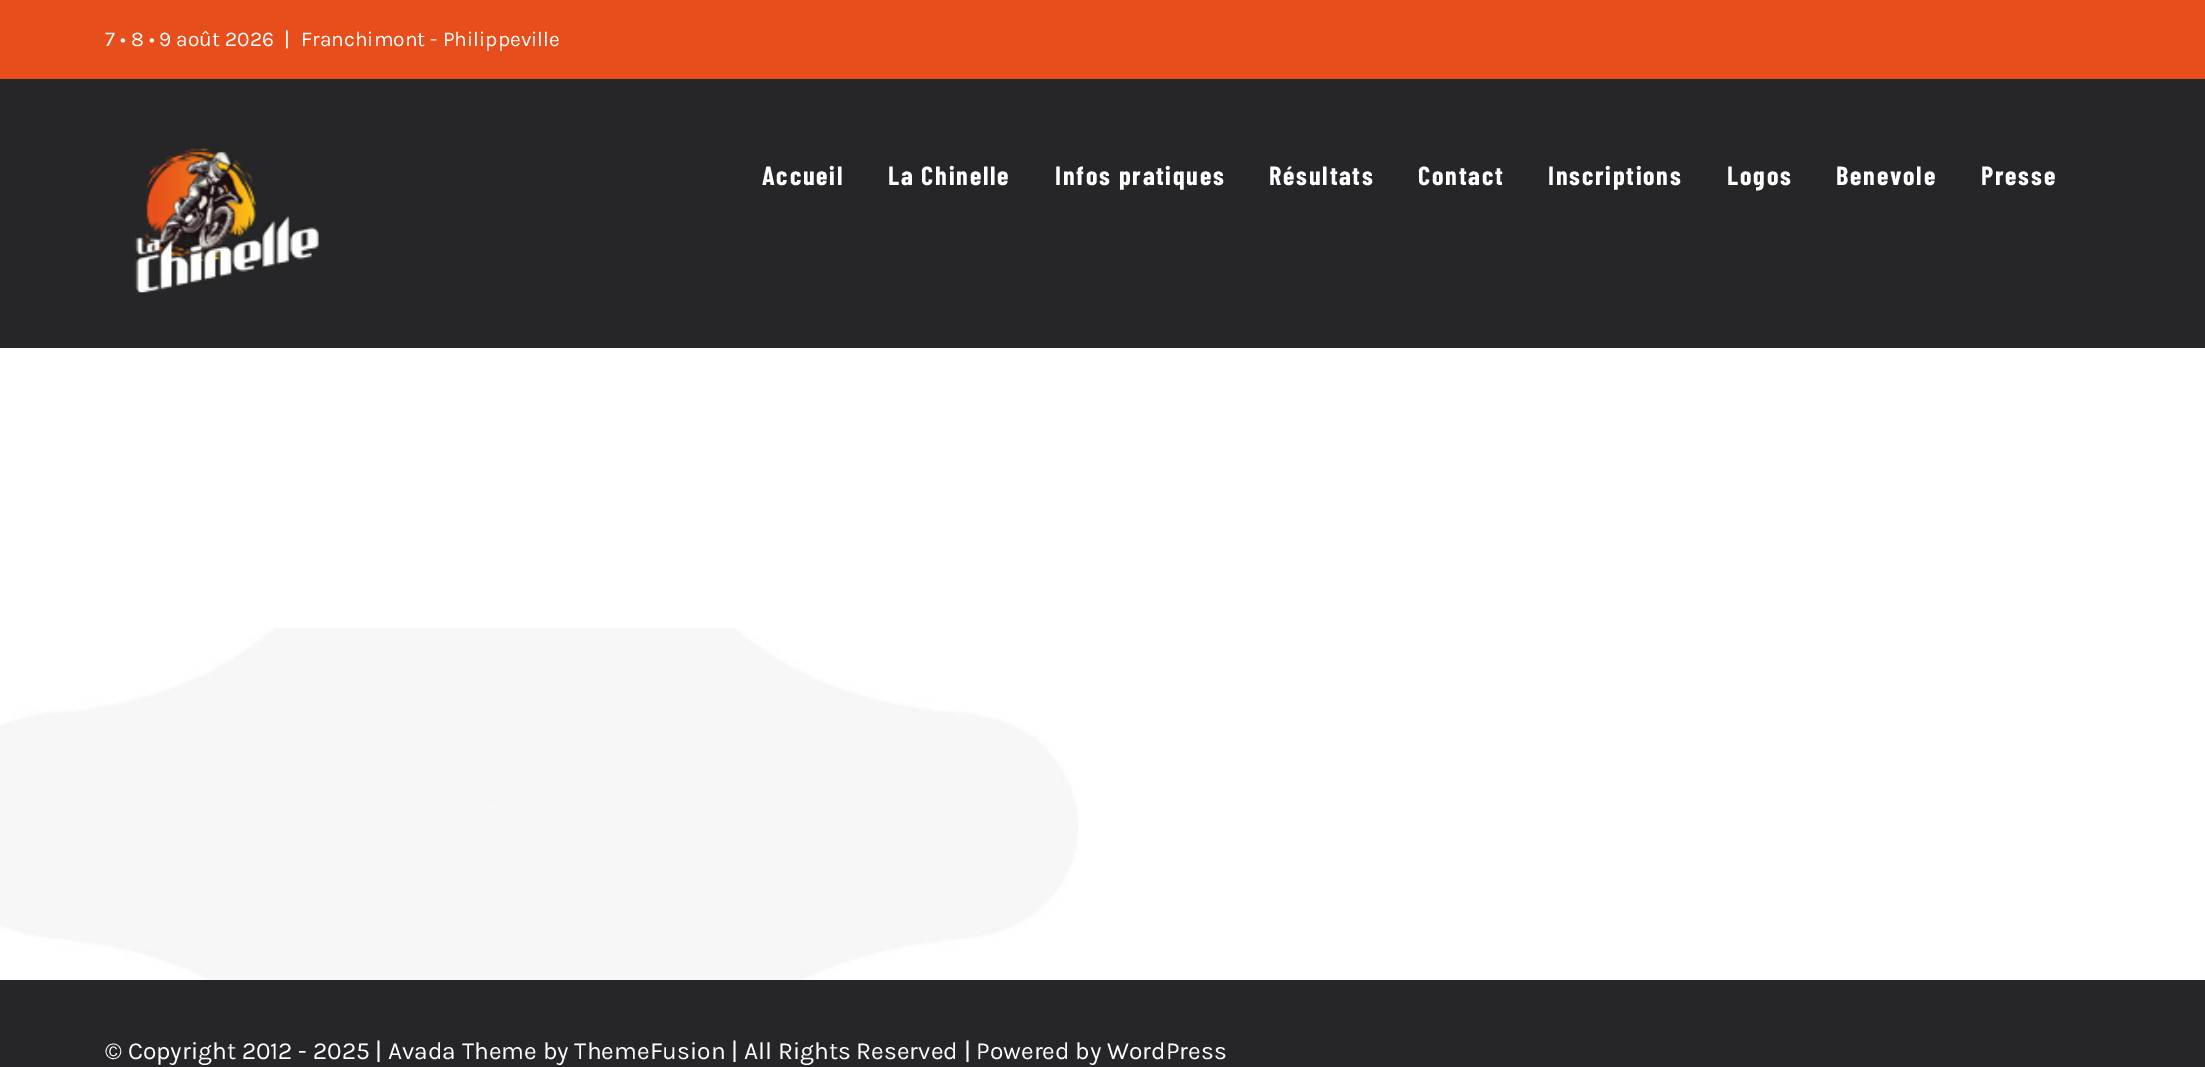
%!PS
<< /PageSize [2205 1067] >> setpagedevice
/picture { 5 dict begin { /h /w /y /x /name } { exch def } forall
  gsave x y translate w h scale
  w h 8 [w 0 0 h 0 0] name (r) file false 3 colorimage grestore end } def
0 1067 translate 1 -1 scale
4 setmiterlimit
1 setgray
0 0 2205 1067 rectfill
0.91 0.306 0.106 setrgbcolor
0 0 2205 79 rectfill
/Karla-Regular [21 0 0 -21 0 0] selectfont
1 setgray
105 46 moveto (7 • 8 • 9 août 2026) show
284 46 moveto (|) show
301 46 moveto (Franchimont - Philippeville) show
0.149 0.145 0.157 setrgbcolor
0 79 2205 269 rectfill
(img1.rgb) 134 148 185 145 picture
/BarlowCondensed-Bold [26.25 0 0 -26.25 0 0] selectfont
1 setgray
762 185 moveto 1.75 0 (Accueil) ashow
888 185 moveto 1.75 0 (La Chinelle) ashow
1055 185 moveto 1.75 0 (Infos pratiques) ashow
1269 185 moveto 1.75 0 (Résultats) ashow
1418 185 moveto 1.75 0 (Contact) ashow
1548 185 moveto 1.75 0 (Inscriptions) ashow
1727 185 moveto 1.75 0 (Logos) ashow
1836 185 moveto 1.75 0 (Benevole) ashow
1981 185 moveto 1.75 0 (Presse) ashow
(img2.rgb) 0 628 1078 352 picture
0.149 0.145 0.157 setrgbcolor
0 980 2205 87 rectfill
/Karla-Regular [24.5 0 0 -24.5 0 0] selectfont
1 setgray
105 1059 moveto (© Copyright 2012 - 2025 | Avada Theme by ThemeFusion | All Rights Reserved | Powered by WordPress) show
showpage
